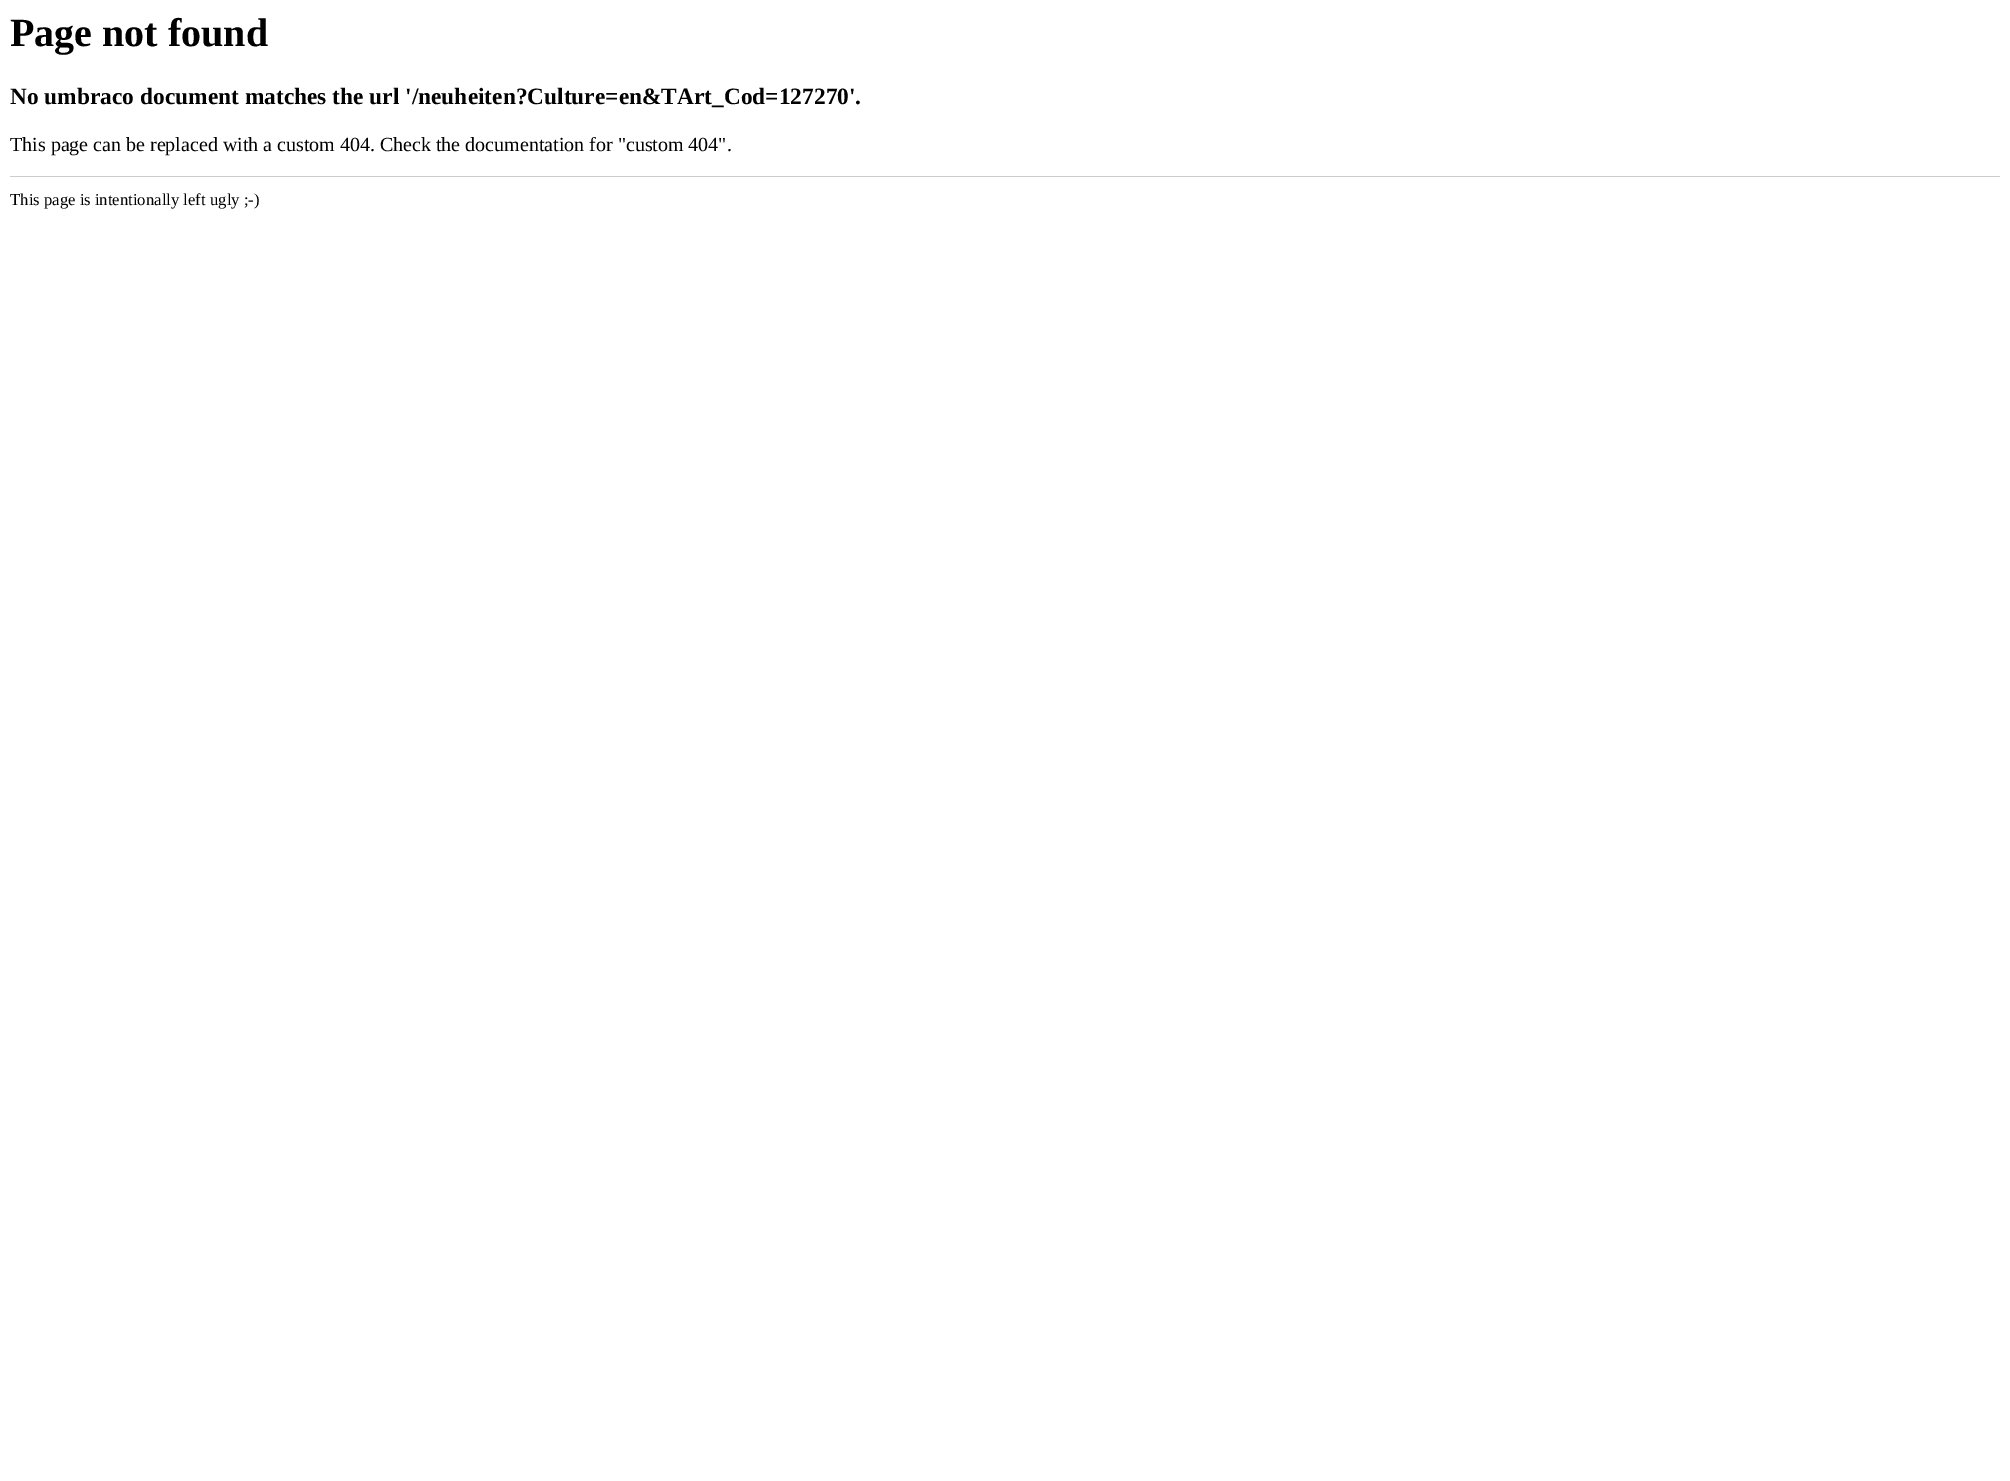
%!PS
<< /PageSize [2010 1481] >> setpagedevice
0 1481 translate 1 -1 scale
4 setmiterlimit
1 setgray
0 0 2010 1481 rectfill
/LiberationSerif-Bold [40 0 0 -40 0 0] selectfont
0 setgray
10 46 moveto (Page not found) show
/LiberationSerif-Bold [23.4 0 0 -23.4 0 0] selectfont
10 104 moveto (No umbraco document matches the url '/neuheiten?Culture=en&TArt_Cod=127270'.) show
/LiberationSerif-Regular [20 0 0 -20 0 0] selectfont
10 151 moveto (This page can be replaced with a custom 404. Check the documentation for "custom 404".) show
0.8 setgray
10 176 1990 1 rectfill
/LiberationSerif-Regular [16.7 0 0 -16.7 0 0] selectfont
0 setgray
10 205 moveto (This page is intentionally left ugly ;-\)) show
showpage
